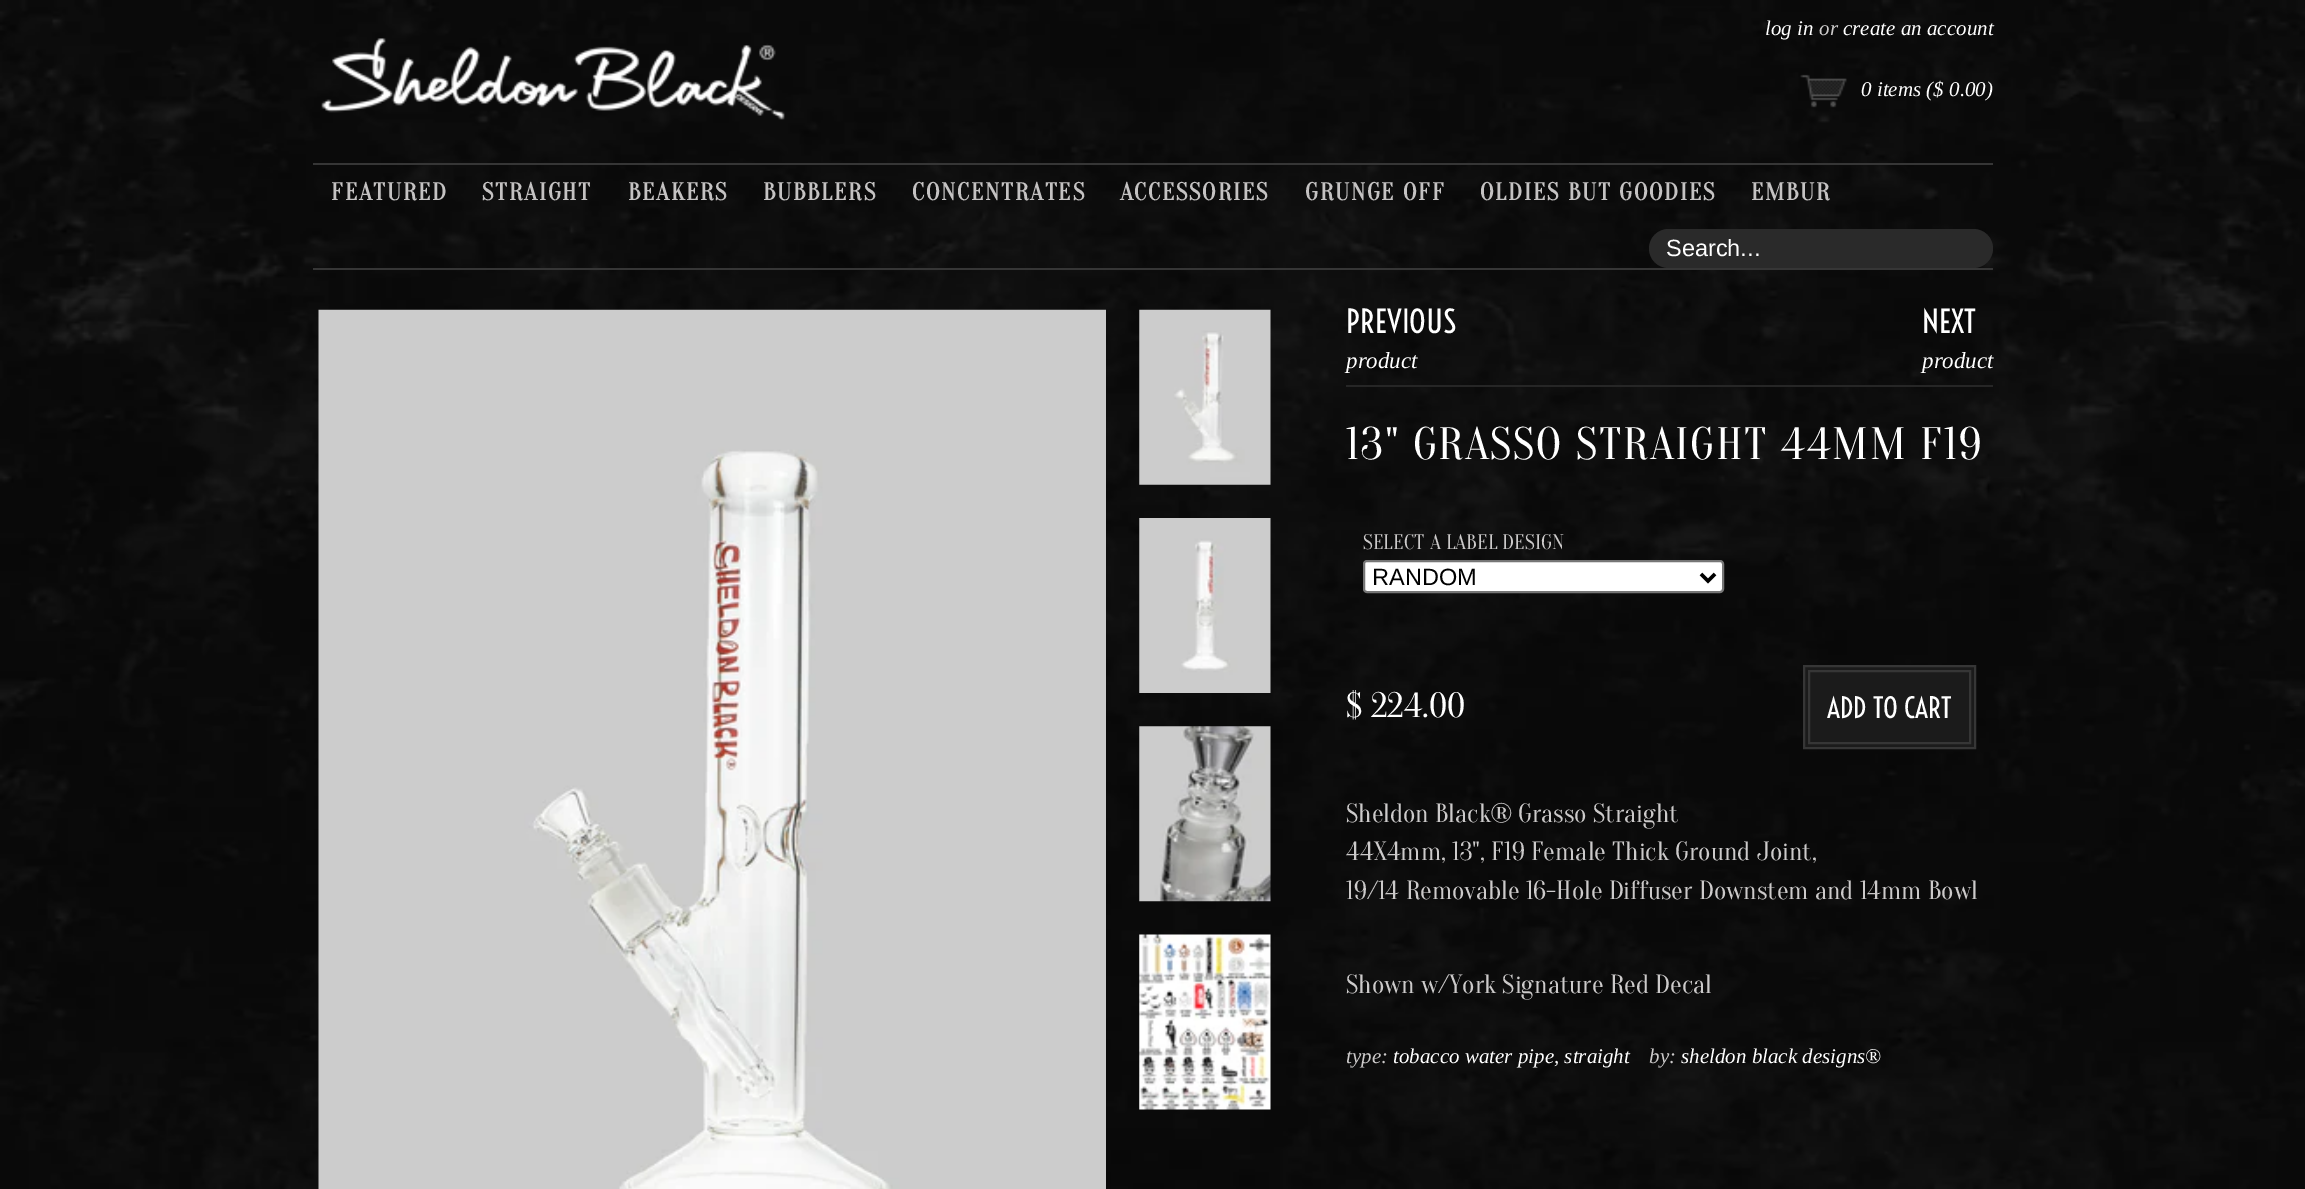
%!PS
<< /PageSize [2305 1189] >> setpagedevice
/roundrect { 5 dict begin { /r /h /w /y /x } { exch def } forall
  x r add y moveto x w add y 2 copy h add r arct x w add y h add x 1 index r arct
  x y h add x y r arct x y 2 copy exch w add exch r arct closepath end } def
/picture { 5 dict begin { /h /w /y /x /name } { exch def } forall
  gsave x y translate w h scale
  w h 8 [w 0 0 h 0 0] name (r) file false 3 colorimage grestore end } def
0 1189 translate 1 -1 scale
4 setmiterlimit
1 setgray
0 0 2305 1189 rectfill
(img1.rgb) 0 0 2305 1189 picture
/LiberationSerif-Italic [21 0 0 -21 0 0] selectfont
1765 35 moveto (log in) show
0.8 0.792 0.792 setrgbcolor
1819 35 moveto (or) show
1 setgray
1843 35 moveto (create an account) show
(img2.rgb) 321 38 464 82 picture
(img3.rgb) 1800 74 47 34 picture
1861 96 moveto (0 items \($ 0.00\)) show
0.212 setgray
313 163 1680 2 rectfill
313 268 1680 2 rectfill
/Oranienbaum-Bold [24.5 0 0 -24.5 0 0] selectfont
0.769 0.761 0.761 setrgbcolor
331 200 moveto 1.75 0 (FEATURED) ashow
482 200 moveto 1.75 0 (STRAIGHT) ashow
628 200 moveto 1.75 0 (BEAKERS) ashow
763 200 moveto 1.75 0 (BUBBLERS) ashow
912 200 moveto 1.75 0 (CONCENTRATES) ashow
1120 200 moveto 1.75 0 (ACCESSORIES) ashow
1305 200 moveto 1.75 0 (GRUNGE OFF) ashow
1480 200 moveto 1.75 0 (OLDIES BUT GOODIES) ashow
1751 200 moveto 1.75 0 (EMBUR) ashow
0.165 setgray
1649 229 344 39 19.5 roundrect fill
/LiberationSans-Regular [23.5 0 0 -23.5 0 0] selectfont
1 setgray
1666 256 moveto (Search...) show
(img4.rgb) 318 309 788 880 picture
(img5.rgb) 1139 309 132 176 picture
(img6.rgb) 1139 518 132 175 picture
(img7.rgb) 1139 726 132 176 picture
(img8.rgb) 1139 934 132 176 picture
0.149 setgray
1346 385 647 2 rectfill
/Voltaire-Regular [31.5 0 0 -31.5 0 0] selectfont
1 setgray
1346 333 moveto (PREVIOUS) show
/LiberationSerif-Italic [23 0 0 -23 0 0] selectfont
1346 368 moveto (product) show
/Voltaire-Regular [31.5 0 0 -31.5 0 0] selectfont
1922 333 moveto (NEXT) show
/LiberationSerif-Italic [23 0 0 -23 0 0] selectfont
1922 368 moveto (product) show
/Oranienbaum-Regular [45.5 0 0 -45.5 0 0] selectfont
1346 459 moveto 1.75 0 (13" GRASSO STRAIGHT 44MM F19) ashow
/Oranienbaum-Regular [21 0 0 -21 0 0] selectfont
0.8 0.792 0.792 setrgbcolor
1363 549 moveto (SELECT A LABEL DESIGN) show
1 setgray
1364 561 359 31 3 roundrect gsave fill grestore
0.463 setgray
2 setlinewidth
stroke
0 setgray
3.5 setlinewidth
newpath 1701 574 moveto 1708 581 lineto 1715 574 lineto stroke
/LiberationSans-Regular [23.5 0 0 -23.5 0 0] selectfont
1372 585 moveto (RANDOM) show
/Oranienbaum-Regular [35 0 0 -35 0 0] selectfont
1 setgray
1346 717 moveto ($ 224.00) show
0.106 setgray
newpath 1804 666 moveto 1975 666 lineto 1975 748 lineto 1804 748 lineto closepath gsave fill grestore
0.212 setgray
2 setlinewidth
stroke
1809 671 161 72 rectstroke
/Voltaire-Regular [28 0 0 -28 0 0] selectfont
1 setgray
1827 718 moveto (ADD TO CART) show
/Oranienbaum-Regular [26.25 0 0 -26.25 0 0] selectfont
0.8 0.792 0.792 setrgbcolor
1346 822 moveto (Sheldon Black® Grasso Straight) show
1346 860 moveto (44X4mm, 13", F19 Female Thick Ground Joint,) show
1346 899 moveto (19/14 Removable 16-Hole Diffuser Downstem and 14mm Bowl) show
1346 993 moveto (Shown w/York Signature Red Decal) show
/LiberationSerif-Italic [21 0 0 -21 0 0] selectfont
1346 1063 moveto (type:) show
1 setgray
1393 1063 moveto (tobacco water pipe, straight) show
0.8 0.792 0.792 setrgbcolor
1649 1063 moveto (by:) show
1 setgray
1681 1063 moveto (sheldon black designs®) show
showpage
